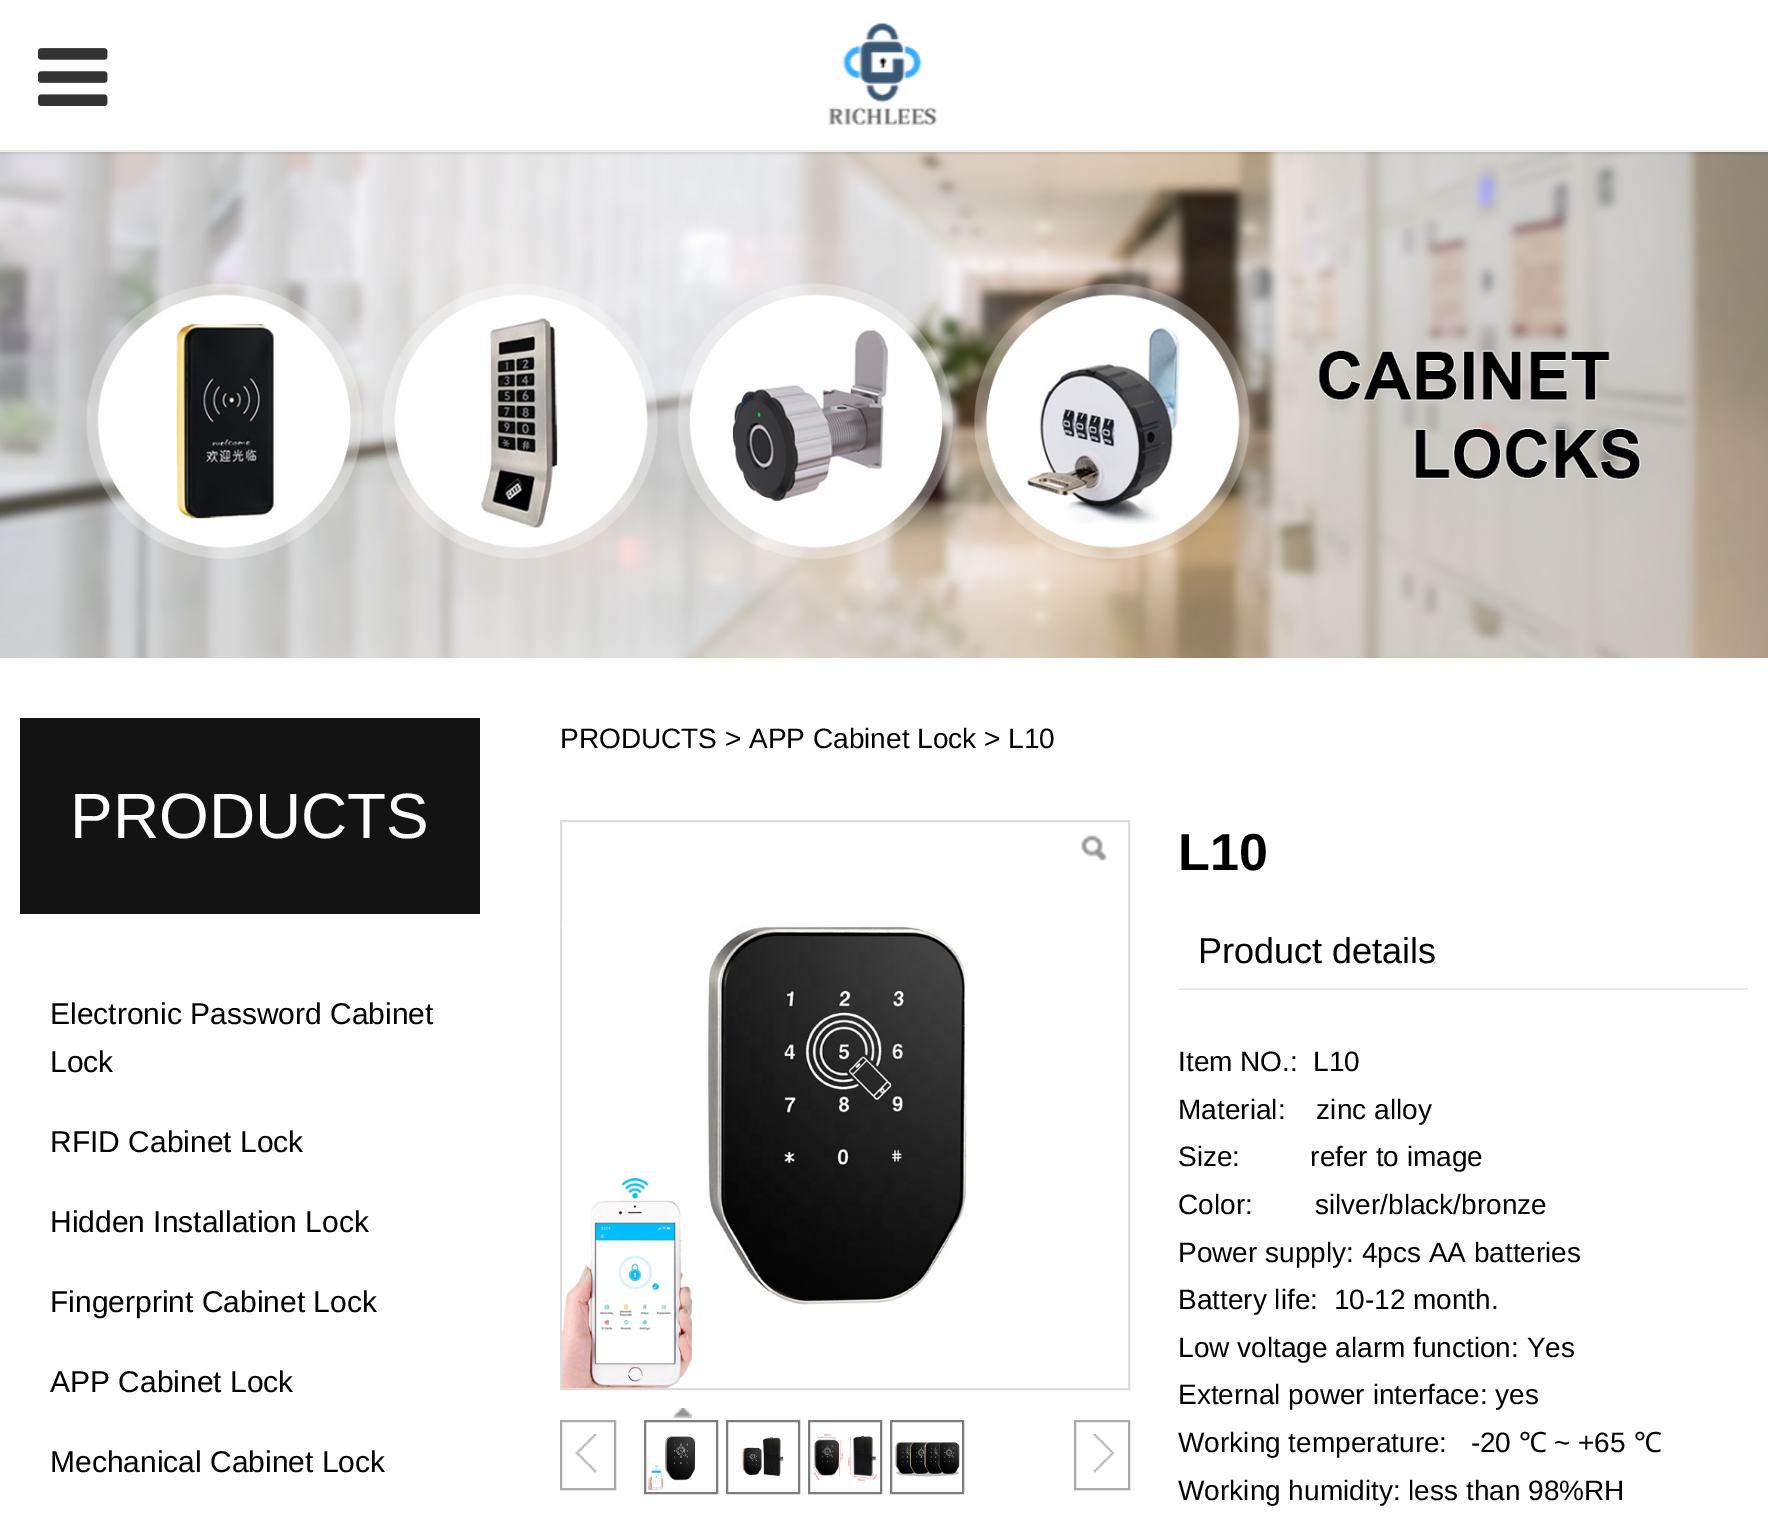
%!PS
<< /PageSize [1768 1518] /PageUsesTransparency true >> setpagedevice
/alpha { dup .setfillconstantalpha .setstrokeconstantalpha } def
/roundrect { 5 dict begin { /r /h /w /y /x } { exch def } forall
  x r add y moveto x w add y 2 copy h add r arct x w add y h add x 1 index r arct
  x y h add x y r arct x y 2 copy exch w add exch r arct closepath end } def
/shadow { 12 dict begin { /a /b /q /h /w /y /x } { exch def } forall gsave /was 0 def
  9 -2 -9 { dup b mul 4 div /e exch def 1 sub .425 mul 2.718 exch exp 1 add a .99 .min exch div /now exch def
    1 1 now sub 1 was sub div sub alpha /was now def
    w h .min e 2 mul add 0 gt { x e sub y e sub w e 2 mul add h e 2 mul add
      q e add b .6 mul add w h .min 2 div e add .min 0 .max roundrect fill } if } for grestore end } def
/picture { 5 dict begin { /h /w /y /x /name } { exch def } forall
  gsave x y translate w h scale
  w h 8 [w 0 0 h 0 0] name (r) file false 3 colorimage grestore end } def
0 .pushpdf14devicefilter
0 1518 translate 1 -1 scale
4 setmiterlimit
1 setgray
0 0 1768 1518 rectfill
(img3.rgb) 0 152 1768 506 picture
gsave
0 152 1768 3 rectclip
0 setgray
0 2 1768 152 0 1 0.1 shadow
grestore
0.925 setgray
0 150 1768 2 rectfill
(img1.rgb) 38 48 70 58 picture
(img2.rgb) 828 22 110 104 picture
0.075 setgray
20 718 460 196 rectfill
/LiberationSans-Regular [64 0 0 -64 0 0] selectfont
1 setgray
70 838 moveto (PRODUCTS) show
/LiberationSans-Regular [30 0 0 -30 0 0] selectfont
0 setgray
50 1024 moveto (Electronic Password Cabinet) show
50 1072 moveto (Lock) show
50 1152 moveto (RFID Cabinet Lock) show
50 1232 moveto (Hidden Installation Lock) show
50 1312 moveto (Fingerprint Cabinet Lock) show
50 1392 moveto (APP Cabinet Lock) show
50 1472 moveto (Mechanical Cabinet Lock) show
/LiberationSans-Regular [28 0 0 -28 0 0] selectfont
560 748 moveto (PRODUCTS > APP Cabinet Lock > L10) show
0.863 setgray
2 setlinewidth
561 821 568 568 rectstroke
(img4.rgb) 1081 835 26 26 picture
(img5.rgb) 562 925 405 463 picture
(img6.rgb) 575 1434 22 39 picture
0.667 setgray
561 1421 54 68 rectstroke
0.49 setgray
645 1421 72 72 rectstroke
(img7.rgb) 674 1408 18 10 picture
(img8.rgb) 648 1436 48 54 picture
727 1421 72 72 rectstroke
(img9.rgb) 742 1437 42 40 picture
809 1421 72 72 rectstroke
(img10.rgb) 813 1433 65 49 picture
891 1421 72 72 rectstroke
(img11.rgb) 895 1442 65 35 picture
(img12.rgb) 1093 1434 22 39 picture
0.667 setgray
1075 1421 54 68 rectstroke
/LiberationSans-Bold [52 0 0 -52 0 0] selectfont
0 setgray
1178 870 moveto (L10) show
0.914 0.914 0.91 setrgbcolor
1178 988 570 2 rectfill
/LiberationSans-Regular [36 0 0 -36 0 0] selectfont
0 setgray
1198 963 moveto (Product details) show
/LiberationSans-Regular [28 0 0 -28 0 0] selectfont
1178 1071 moveto (Item NO.:  L10) show
1178 1119 moveto (Material:    zinc alloy) show
1178 1166 moveto (Size:         refer to image) show
1178 1214 moveto (Color:        silver/black/bronze) show
1178 1262 moveto (Power supply: 4pcs AA batteries) show
1178 1309 moveto (Battery life:  10-12 month.) show
1178 1357 moveto (Low voltage alarm function: Yes) show
1178 1404 moveto (External power interface: yes) show
1178 1452 moveto (Working temperature:   -20) show
/NotoSans-Regular [28 0 0 -28 0 0] selectfont
1519 1452 moveto (℃) show
/LiberationSans-Regular [28 0 0 -28 0 0] selectfont
1554 1452 moveto (~ +65) show
/NotoSans-Regular [28 0 0 -28 0 0] selectfont
1634 1452 moveto (℃) show
/LiberationSans-Regular [28 0 0 -28 0 0] selectfont
1178 1500 moveto (Working humidity: less than 98%RH) show
.poppdf14devicefilter showpage
